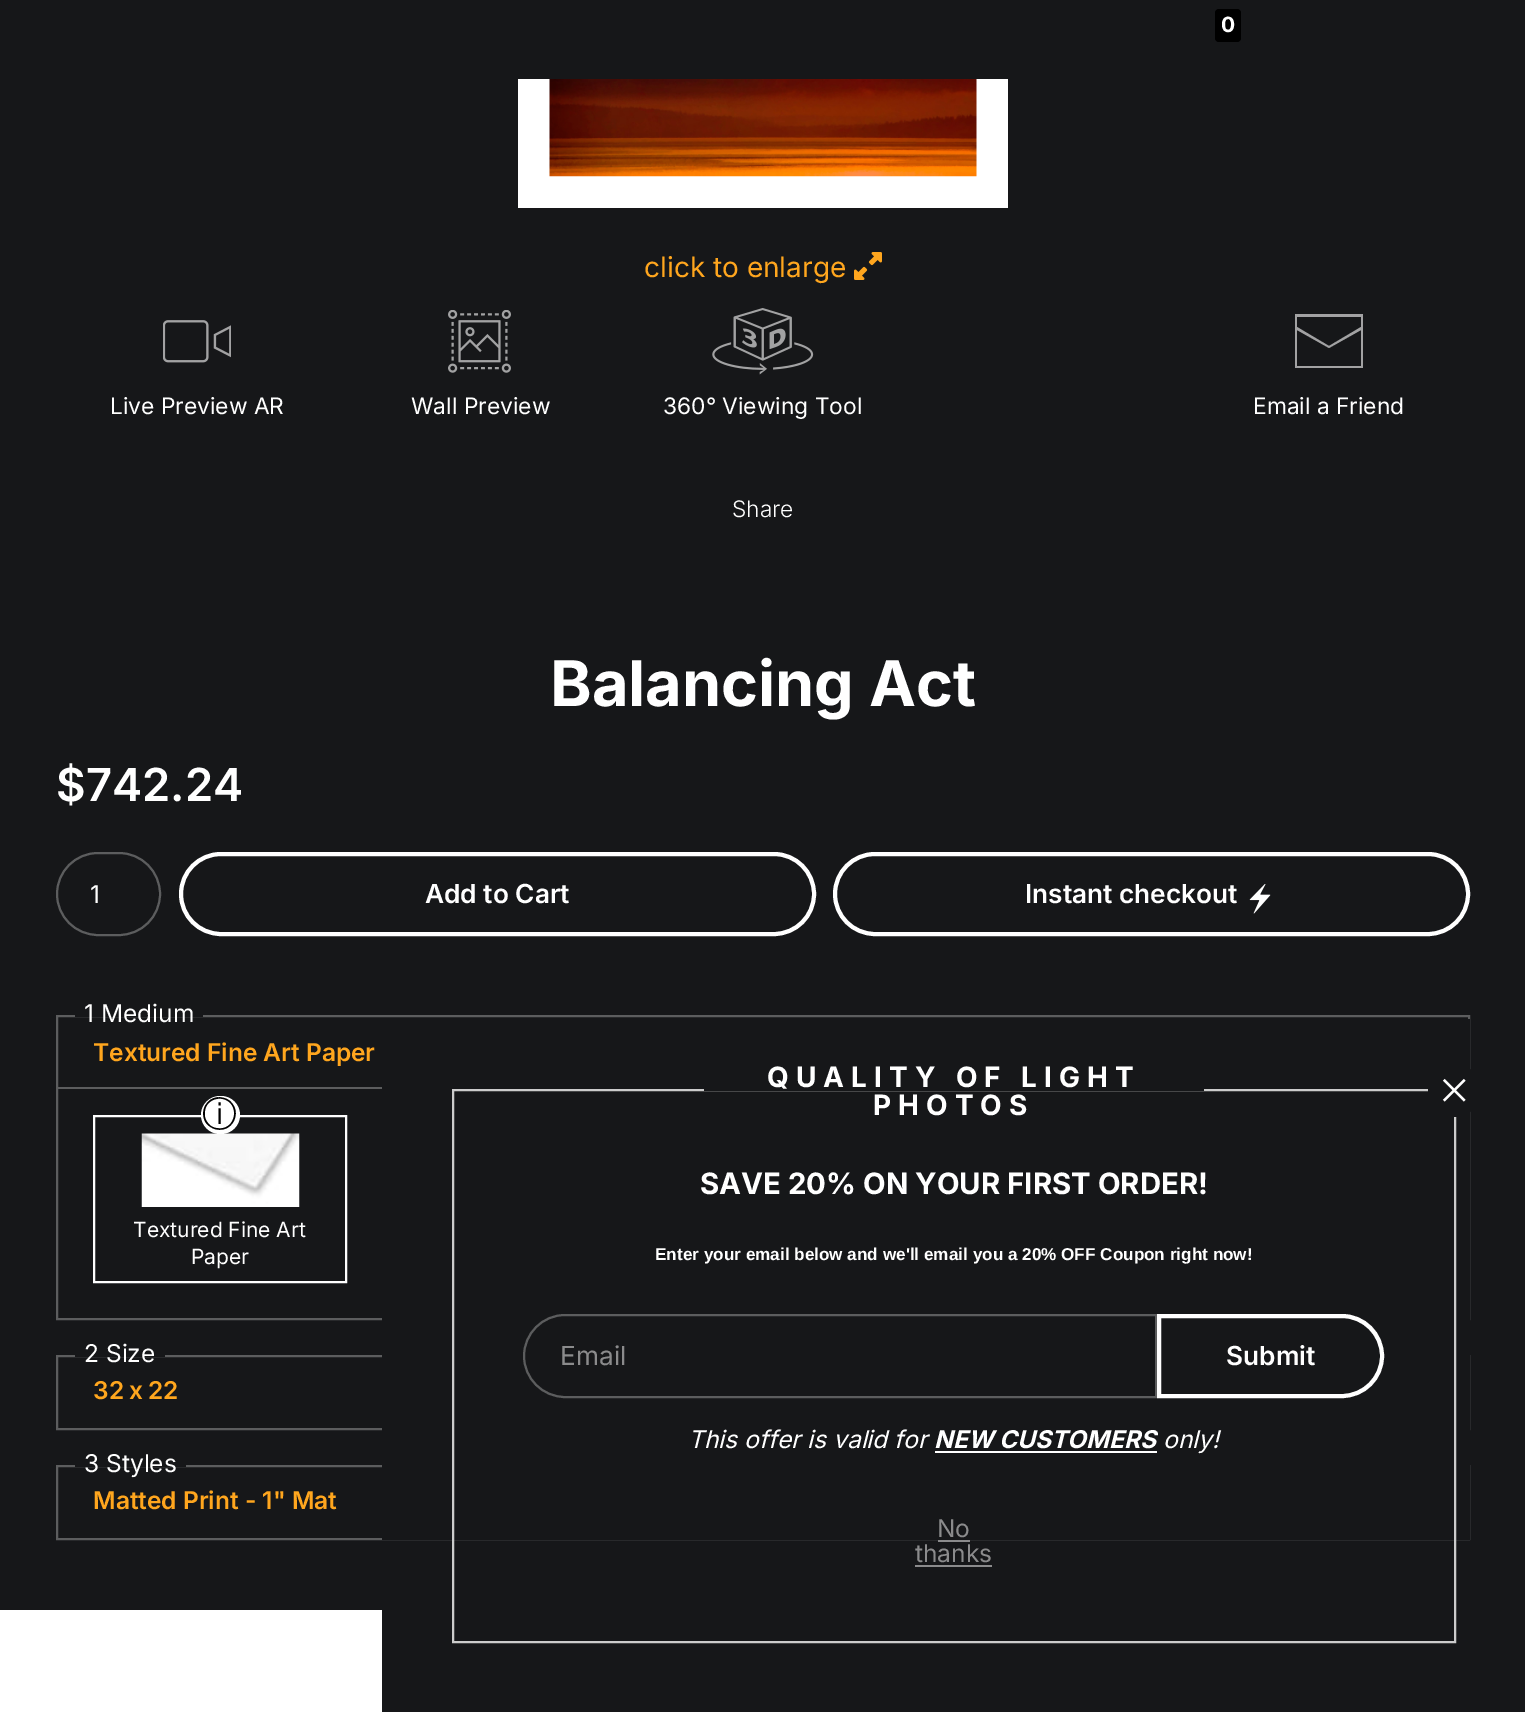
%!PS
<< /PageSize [1525 1712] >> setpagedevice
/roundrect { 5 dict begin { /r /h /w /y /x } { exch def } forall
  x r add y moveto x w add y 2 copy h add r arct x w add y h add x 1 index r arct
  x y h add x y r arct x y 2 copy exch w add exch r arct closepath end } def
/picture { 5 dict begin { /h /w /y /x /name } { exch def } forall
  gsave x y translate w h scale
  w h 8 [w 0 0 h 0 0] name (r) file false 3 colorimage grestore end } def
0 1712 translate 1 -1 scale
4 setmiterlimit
0.086 0.09 0.098 setrgbcolor
0 0 1525 1712 rectfill
0 setgray
1215 9 26 33 4 roundrect fill
/Inter-Bold [21 0 0 -21 0 0] selectfont
1 setgray
1221 32 moveto (0) show
518 79 490 129 rectfill
(img1.rgb) 549 79 428 98 picture
/Inter-Regular [28 0 0 -28 0 0] selectfont
1 0.651 0.118 setrgbcolor
644 277 moveto (click to enlarge) show
(img2.rgb) 854 252 28 28 picture
(img3.rgb) 163 320 68 43 picture
/Inter-Regular [22.75 0 0 -22.75 0 0] selectfont
1 setgray
110 414 moveto (Live Preview AR) show
(img4.rgb) 448 310 63 63 picture
411 414 moveto (Wall Preview) show
(img5.rgb) 712 308 102 67 picture
663 414 moveto (360° Viewing Tool) show
gsave
1295 310 68 63 rectclip
0.635 0.635 0.639 setrgbcolor
newpath 1295 314 moveto 1295 368 lineto 1364 368 lineto 1364 314 lineto closepath 1297 327 moveto 1297 317 lineto 1361 317 lineto 1361 327 lineto 1329 346 lineto closepath 1361 330 moveto 1361 366 lineto 1297 366 lineto 1297 330 lineto 1329 348 lineto closepath fill
grestore
1253 414 moveto (Email a Friend) show
/Inter-Light [22.75 0 0 -22.75 0 0] selectfont
732 517 moveto (Share) show
/Inter-Bold [63 0 0 -63 0 0] selectfont
550 706 moveto (Balancing Act) show
/Inter-SemiBold [45.5 0 0 -45.5 0 0] selectfont
56 801 moveto ($742.24) show
0.361 0.365 0.369 setrgbcolor
2 setlinewidth
57 853 103 82 41 roundrect stroke
/Inter-Regular [24.5 0 0 -24.5 0 0] selectfont
1 setgray
90 903 moveto (1) show
4 setlinewidth
181 854 633 80 40 roundrect stroke
/Inter-SemiBold [26.25 0 0 -26.25 0 0] selectfont
425 903 moveto (Add to Cart) show
835 854 633 80 40 roundrect stroke
1025 903 moveto (Instant checkout) show
(img6.rgb) 1249 884 22 30 picture
0.361 0.365 0.369 setrgbcolor
2 setlinewidth
57 1016 1412 303 rectstroke
0.086 0.09 0.098 setrgbcolor
75 1015 128 2 rectfill
/Inter-Regular [24.5 0 0 -24.5 0 0] selectfont
1 setgray
84 1022 moveto (1 Medium) show
/Inter-SemiBold [24.5 0 0 -24.5 0 0] selectfont
1 0.651 0.118 setrgbcolor
93 1061 moveto (Textured Fine Art Paper) show
0.361 0.365 0.369 setrgbcolor
58 1087 324 2 rectfill
1 setgray
94 1116 252 166 rectstroke
(img7.rgb) 141 1133 159 74 picture
201 1096 39 38 19 roundrect fill
/WenQuanYiZenHei-Medium [35 0 0 -35 0 0] selectfont
0 setgray
202 1126 moveto (ⓘ) show
/Inter-Regular [21 0 0 -21 0 0] selectfont
1 setgray
133 1237 moveto (Textured Fine Art) show
191 1264 moveto (Paper) show
0.361 0.365 0.369 setrgbcolor
57 1356 1412 73 rectstroke
0.086 0.09 0.098 setrgbcolor
75 1355 90 2 rectfill
/Inter-Regular [24.5 0 0 -24.5 0 0] selectfont
1 setgray
84 1362 moveto (2 Size) show
/Inter-SemiBold [24.5 0 0 -24.5 0 0] selectfont
1 0.651 0.118 setrgbcolor
93 1399 moveto -1 0 32 (32 x 22) widthshow
0.361 0.365 0.369 setrgbcolor
57 1466 1412 73 rectstroke
0.086 0.09 0.098 setrgbcolor
75 1465 111 2 rectfill
/Inter-Regular [24.5 0 0 -24.5 0 0] selectfont
1 setgray
84 1472 moveto (3 Styles) show
/Inter-SemiBold [24.5 0 0 -24.5 0 0] selectfont
1 0.651 0.118 setrgbcolor
93 1509 moveto (Matted Print - 1" Mat) show
1 setgray
0 1610 382 102 rectfill
0.086 0.09 0.098 setrgbcolor
382 1019 1088 521 rectfill
0.8 setgray
453 1090 1002 552 rectstroke
0.086 0.09 0.098 setrgbcolor
704 1089 500 2 rectfill
/Inter-Bold [28 0 0 -28 0 0] selectfont
1 setgray
767 1087 moveto 7 0 (QUALITY OF LIGHT) ashow
873 1115 moveto 7 0 (PHOTOS) ashow
0.086 0.09 0.098 setrgbcolor
newpath 1454.5 1090.5 26.5 0 360 arc closepath fill
(img8.rgb) 1442 1078 24 24 picture
/Inter-Bold [29.4 0 0 -29.4 0 0] selectfont
1 setgray
700 1194 moveto (SAVE 20% ON YOUR FIRST ORDER!) show
/LiberationSans-Bold [17.15 0 0 -17.15 0 0] selectfont
655 1260 moveto (Enter your email below and we'll email you a 20% OFF Coupon right now!) show
0.361 0.365 0.369 setrgbcolor
newpath 565 1315 moveto 1156 1315 lineto 1156 1397 lineto 565 1397 lineto 542.5 1397 524 1378.5 524 1356 curveto 524 1333.5 542.5 1315 565 1315 curveto closepath stroke
/Inter-Regular [26.25 0 0 -26.25 0 0] selectfont
0.545 0.545 0.549 setrgbcolor
560 1365 moveto (Email) show
1 setgray
4 setlinewidth
newpath 1159 1316 moveto 1342 1316 lineto 1364 1316 1382 1334 1382 1356 curveto 1382 1378 1364 1396 1342 1396 curveto 1159 1396 lineto closepath stroke
/Inter-SemiBold [26.25 0 0 -26.25 0 0] selectfont
1226 1365 moveto (Submit) show
/Inter-Italic [24.5 0 0 -24.5 0 0] selectfont
688 1448 moveto (This offer is valid for) show
/Inter-BoldItalic [24.5 0 0 -24.5 0 0] selectfont
934 1448 moveto (NEW CUSTOMERS) show
935 1451 222 2 rectfill
/Inter-Italic [24.5 0 0 -24.5 0 0] selectfont
1163 1448 moveto (only!) show
/Inter-Regular [24.5 0 0 -24.5 0 0] selectfont
0.545 0.545 0.549 setrgbcolor
937 1537 moveto (No) show
938 1540 32 2 rectfill
915 1562 moveto (thanks) show
915 1565 77 2 rectfill
showpage
